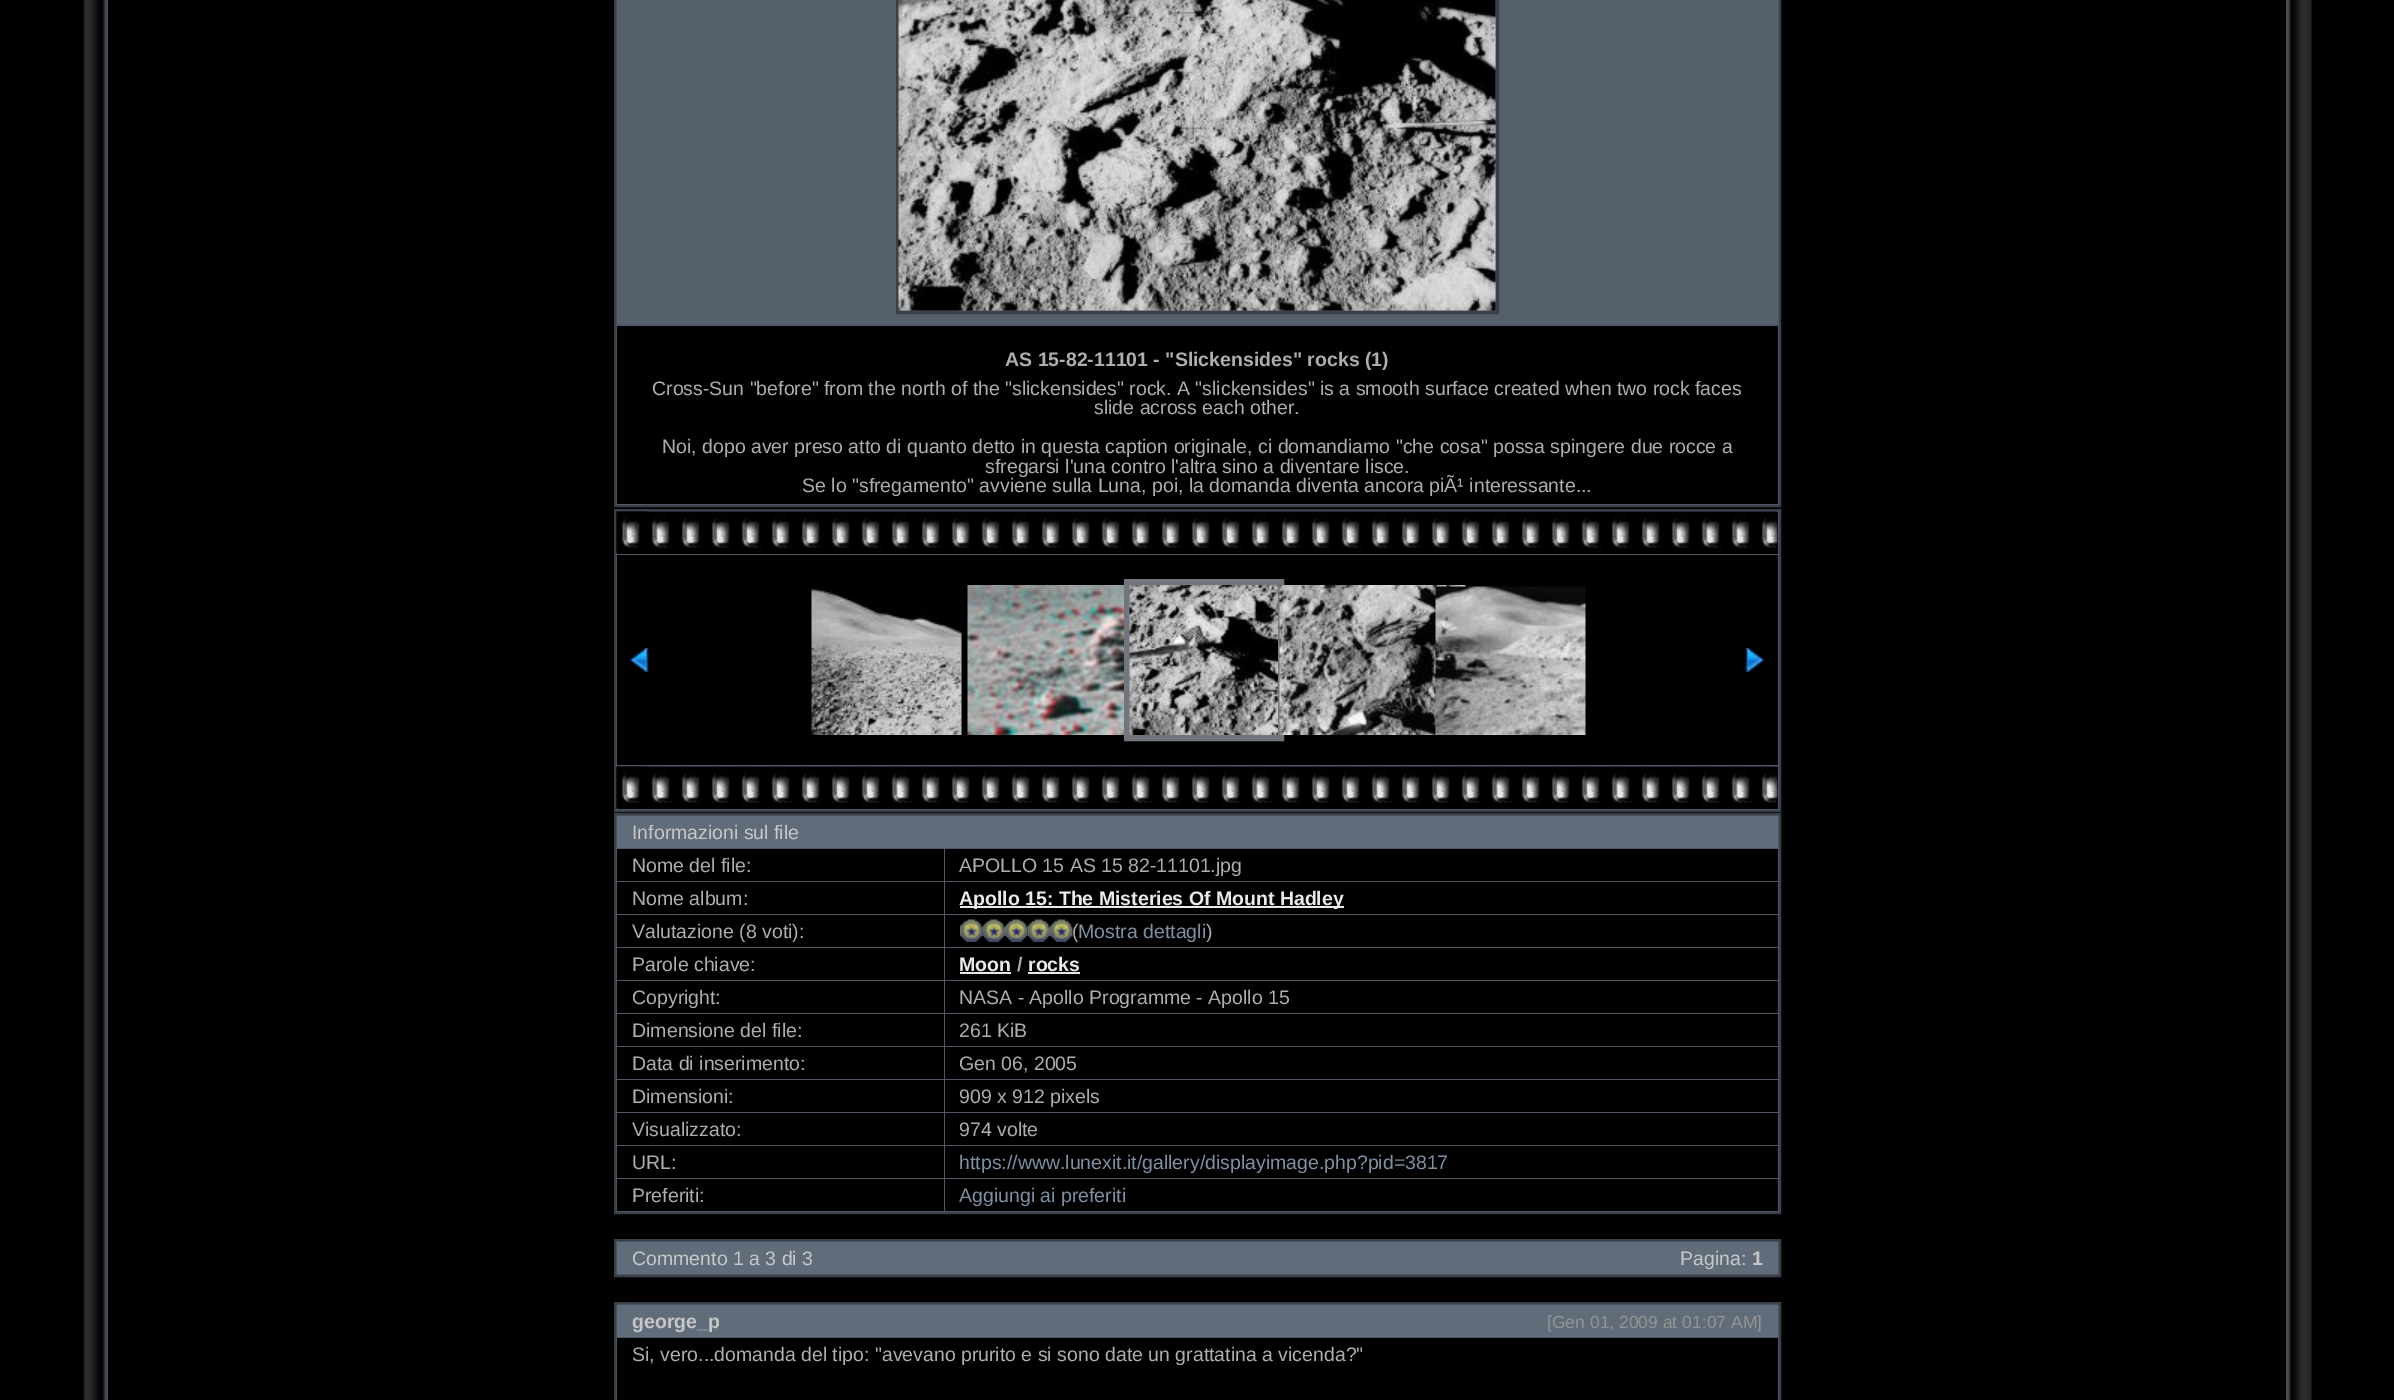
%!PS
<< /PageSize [2394 1400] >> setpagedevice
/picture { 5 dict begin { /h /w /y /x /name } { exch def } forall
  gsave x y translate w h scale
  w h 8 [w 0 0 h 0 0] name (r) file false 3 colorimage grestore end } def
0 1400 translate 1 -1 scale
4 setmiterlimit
0 setgray
0 0 2394 1400 rectfill
(img1.rgb) 83 0 25 1400 picture
0.31 0.345 0.392 setrgbcolor
newpath 615 -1 moveto 1780 -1 lineto 1780 506 lineto 615 506 lineto closepath gsave fill grestore
0.224 0.251 0.286 setrgbcolor
2 setlinewidth
stroke
0.337 0.376 0.427 setrgbcolor
617 0 1161 324 rectfill
0.224 0.251 0.282 setrgbcolor
3 setlinewidth
897.5 -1.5 600 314 rectstroke
(img2.rgb) 898 0 598 311 picture
0 setgray
617 326 1161 178 rectfill
/LiberationSans-Bold [19.5 0 0 -19.5 0 0] selectfont
0.682 setgray
1005 366 moveto (AS 15-82-11101 - "Slickensides" rocks \(1\)) show
/LiberationSans-Regular [19.5 0 0 -19.5 0 0] selectfont
652 395 moveto (Cross-Sun "before" from the north of the "slickensides" rock. A "slickensides" is a smooth surface created when two rock faces) show
1094 414 moveto (slide across each other.) show
662 453 moveto (Noi, dopo aver preso atto di quanto detto in questa caption originale, ci domandiamo "che cosa" possa spingere due rocce a) show
985 473 moveto (sfregarsi l'una contro l'altra sino a diventare lisce.) show
802 492 moveto (Se lo "sfregamento" avviene sulla Luna, poi, la domanda diventa ancora piÃ¹ interessante...) show
0.31 0.345 0.392 setrgbcolor
newpath 615 510 moveto 1780 510 lineto 1780 811 lineto 615 811 lineto closepath gsave fill grestore
0.224 0.251 0.286 setrgbcolor
2 setlinewidth
stroke
0 setgray
617 512 1161 42 rectfill
(img3.rgb) 616 511 1162 43 picture
(img4.rgb) 616 511 31 43 picture
617 555 1161 210 rectfill
(img5.rgb) 629 648 20 24 picture
(img6.rgb) 811 587 151 148 picture
(img7.rgb) 967 585 157 150 picture
0.447 0.463 0.486 setrgbcolor
6 setlinewidth
1127 582 154 156 rectstroke
(img8.rgb) 1129 585 149 150 picture
(img9.rgb) 1279 585 187 150 picture
(img10.rgb) 1435 586 151 149 picture
(img11.rgb) 1745 648 20 24 picture
0 setgray
617 767 1161 42 rectfill
(img12.rgb) 616 766 1162 43 picture
(img4.rgb) 616 766 31 43 picture
0.31 0.345 0.392 setrgbcolor
newpath 615 814 moveto 1780 814 lineto 1780 1213 lineto 615 1213 lineto closepath gsave fill grestore
0.224 0.251 0.286 setrgbcolor
2 setlinewidth
stroke
0.38 0.424 0.478 setrgbcolor
617 816 1161 32 rectfill
0.78 setgray
632 839 moveto (Informazioni sul file) show
0 setgray
617 849 327 32 rectfill
0.682 setgray
632 872 moveto (Nome del file:) show
0 setgray
945 849 833 32 rectfill
0.682 setgray
959 872 moveto (APOLLO 15 AS 15 82-11101.jpg) show
0 setgray
617 882 327 32 rectfill
0.682 setgray
632 905 moveto (Nome album:) show
0 setgray
945 882 833 32 rectfill
0.918 setgray
960 906 384 2 rectfill
/LiberationSans-Bold [19.5 0 0 -19.5 0 0] selectfont
959 905 moveto (Apollo 15: The Misteries Of Mount Hadley) show
0 setgray
617 915 327 32 rectfill
/LiberationSans-Regular [19.5 0 0 -19.5 0 0] selectfont
0.682 setgray
632 938 moveto (Valutazione \(8 voti\):) show
0 setgray
945 915 833 32 rectfill
(img13.rgb) 960 919 23 23 picture
(img14.rgb) 982 919 23 23 picture
(img13.rgb) 1005 919 23 23 picture
(img14.rgb) 1027 919 23 23 picture
(img15.rgb) 1050 919 23 23 picture
0.682 setgray
1072 938 moveto (\() show
0.502 0.565 0.639 setrgbcolor
1078 938 moveto (Mostra dettagli) show
0.682 setgray
1206 938 moveto (\)) show
0 setgray
617 948 327 32 rectfill
0.682 setgray
632 971 moveto (Parole chiave:) show
0 setgray
945 948 833 32 rectfill
/LiberationSans-Bold [19.5 0 0 -19.5 0 0] selectfont
0.918 setgray
959 971 moveto (Moon) show
960 972 51 2 rectfill
0.682 setgray
1017 971 moveto (/) show
0.918 setgray
1028 971 moveto (rocks) show
1028 972 52 2 rectfill
0 setgray
617 981 327 32 rectfill
/LiberationSans-Regular [19.5 0 0 -19.5 0 0] selectfont
0.682 setgray
632 1004 moveto (Copyright:) show
0 setgray
945 981 833 32 rectfill
0.682 setgray
959 1004 moveto (NASA - Apollo Programme - Apollo 15) show
0 setgray
617 1014 327 32 rectfill
0.682 setgray
632 1037 moveto (Dimensione del file:) show
0 setgray
945 1014 833 32 rectfill
0.682 setgray
959 1037 moveto (261 KiB) show
0 setgray
617 1047 327 32 rectfill
0.682 setgray
632 1070 moveto (Data di inserimento:) show
0 setgray
945 1047 833 32 rectfill
0.682 setgray
959 1070 moveto (Gen 06, 2005) show
0 setgray
617 1080 327 32 rectfill
0.682 setgray
632 1103 moveto (Dimensioni:) show
0 setgray
945 1080 833 32 rectfill
0.682 setgray
959 1103 moveto (909 x 912 pixels) show
0 setgray
617 1113 327 32 rectfill
0.682 setgray
632 1136 moveto (Visualizzato:) show
0 setgray
945 1113 833 32 rectfill
0.682 setgray
959 1136 moveto (974 volte) show
0 setgray
617 1146 327 32 rectfill
0.682 setgray
632 1169 moveto (URL:) show
0 setgray
945 1146 833 32 rectfill
0.502 0.565 0.639 setrgbcolor
959 1169 moveto (https://www.lunexit.it/gallery/displayimage.php?pid=3817) show
0 setgray
617 1179 327 32 rectfill
0.682 setgray
632 1202 moveto (Preferiti:) show
0 setgray
945 1179 833 32 rectfill
0.502 0.565 0.639 setrgbcolor
959 1202 moveto (Aggiungi ai preferiti) show
0.31 0.345 0.392 setrgbcolor
newpath 615 1240 moveto 1780 1240 lineto 1780 1276 lineto 615 1276 lineto closepath gsave fill grestore
0.224 0.251 0.286 setrgbcolor
stroke
0.38 0.424 0.478 setrgbcolor
617 1242 1161 32 rectfill
0.78 setgray
632 1265 moveto (Commento 1 a 3 di 3) show
1680 1265 moveto (Pagina:) show
/LiberationSans-Bold [19.5 0 0 -19.5 0 0] selectfont
1752 1265 moveto (1) show
0.31 0.345 0.392 setrgbcolor
newpath 615 1303 moveto 1780 1303 lineto 1780 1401 lineto 615 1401 lineto closepath gsave fill grestore
0.224 0.251 0.286 setrgbcolor
stroke
0.38 0.424 0.478 setrgbcolor
617 1305 1161 32 rectfill
0.78 setgray
632 1328 moveto (george_p) show
/LiberationSans-Regular [17.5 0 0 -17.5 0 0] selectfont
0.58 setgray
1547 1328 moveto ([Gen 01, 2009 at 01:07 AM]) show
0 setgray
617 1338 1161 62 rectfill
/LiberationSans-Regular [19.5 0 0 -19.5 0 0] selectfont
0.682 setgray
632 1361 moveto (Si, vero...domanda del tipo: "avevano prurito e si sono date un grattatina a vicenda?") show
(img16.rgb) 2286 0 26 1400 picture
showpage
